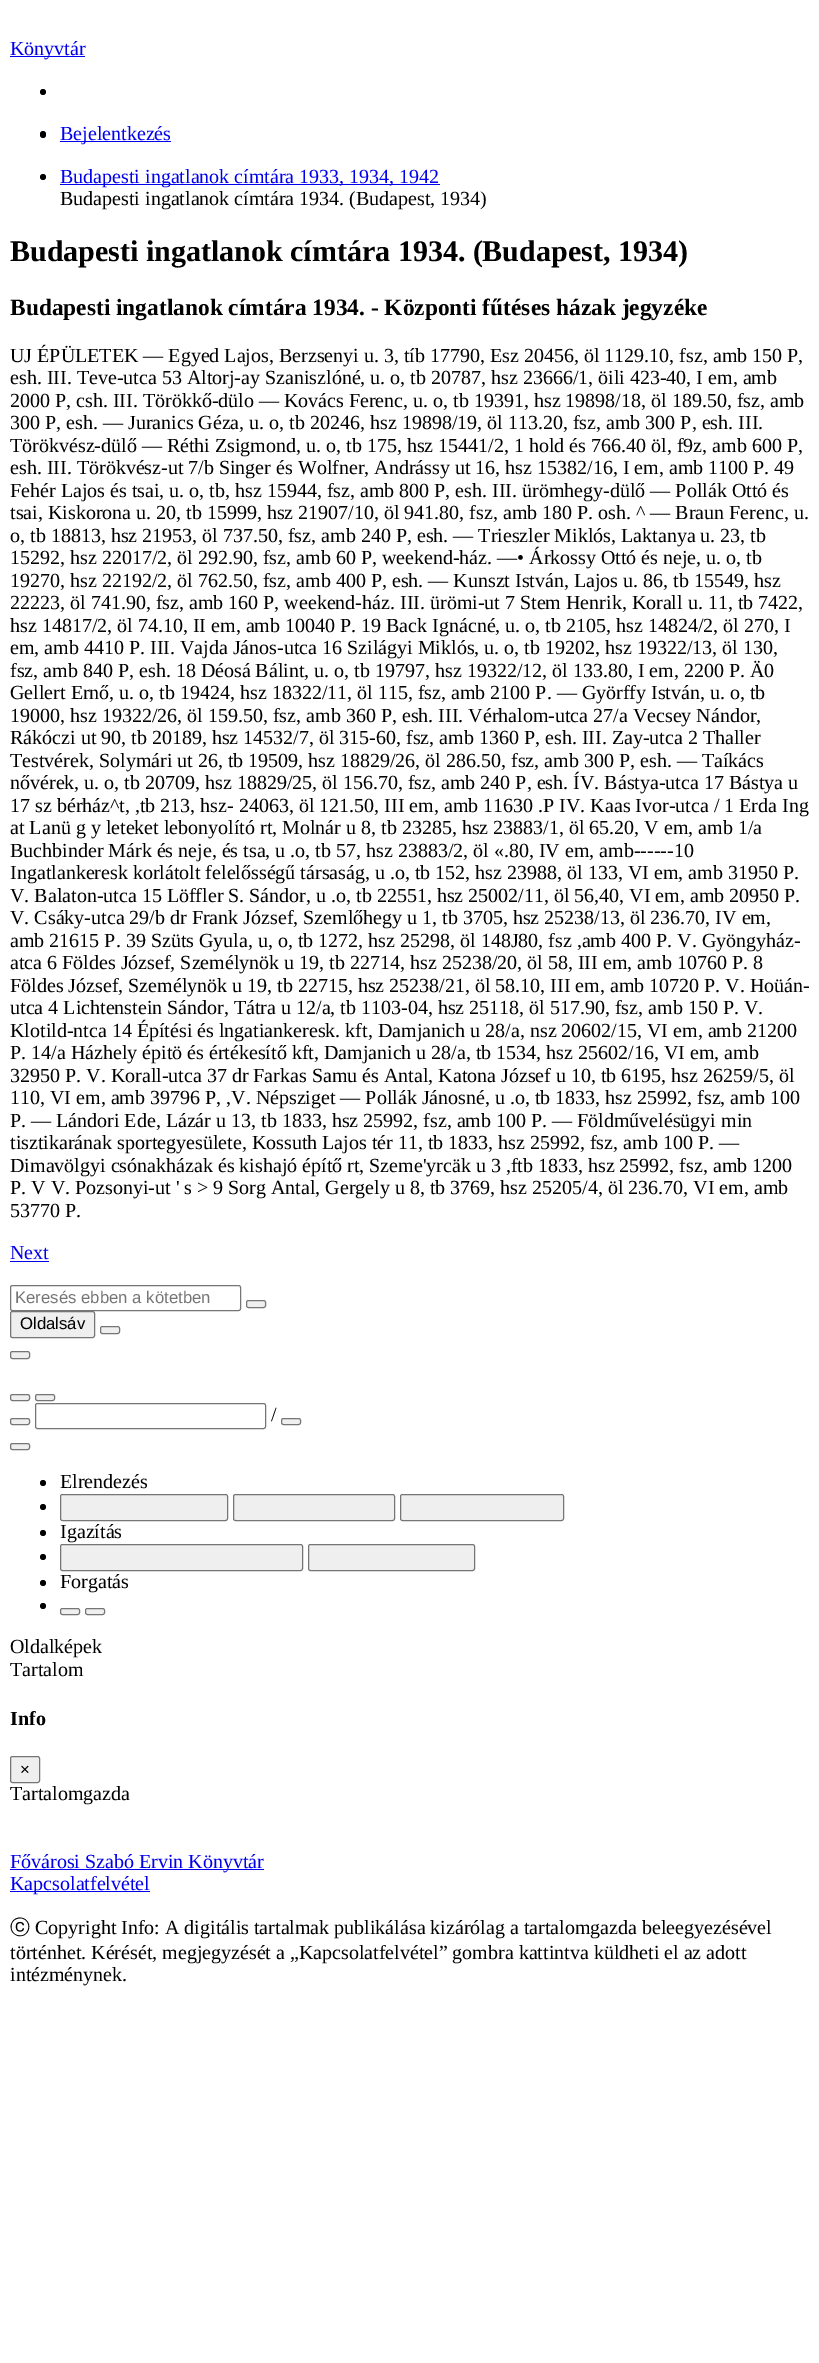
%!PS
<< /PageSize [819 2363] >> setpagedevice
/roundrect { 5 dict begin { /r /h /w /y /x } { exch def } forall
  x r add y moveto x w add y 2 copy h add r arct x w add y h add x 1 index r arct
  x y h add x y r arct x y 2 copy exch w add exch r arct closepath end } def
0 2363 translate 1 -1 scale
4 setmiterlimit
1 setgray
0 0 819 2363 rectfill
0 0 0.933 setrgbcolor
10 56 75 1 rectfill
/LiberationSerif-Regular [20 0 0 -20 0 0] selectfont
10 55 moveto (Könyvtár) show
0 setgray
newpath 43 92 3 0 360 arc closepath fill
40 131 6 7 3 roundrect fill
0 0 0.933 setrgbcolor
60 141 111 1 rectfill
60 140 moveto (Bejelentkezés) show
0 setgray
newpath 43 177 3 0 360 arc closepath fill
0 0 0.933 setrgbcolor
60 184 380 1 rectfill
60 183 moveto (Budapesti ingatlanok címtára 1933, 1934, 1942) show
0 setgray
60 205 moveto (Budapesti ingatlanok címtára 1934. \(Budapest, 1934\)) show
/LiberationSerif-Bold [30 0 0 -30 0 0] selectfont
10 261 moveto (Budapesti ingatlanok címtára 1934. \(Budapest, 1934\)) show
/LiberationSerif-Bold [23.4 0 0 -23.4 0 0] selectfont
10 315 moveto (Budapesti ingatlanok címtára 1934. - Központi fűtéses házak jegyzéke) show
/LiberationSerif-Regular [20 0 0 -20 0 0] selectfont
10 362 moveto (UJ ÉPÜLETEK — Egyed Lajos, Berzsenyi u. 3, tíb 17790, Esz 20456, öl 1129.10, fsz, amb 150 P,) show
10 384 moveto (esh. III. Teve-utca 53 Altorj-ay Szaniszlóné, u. o, tb 20787, hsz 23666/1, öili 423-40, I em, amb) show
10 407 moveto (2000 P, csh. III. Törökkő-dülo — Kovács Ferenc, u. o, tb 19391, hsz 19898/18, öl 189.50, fsz, amb) show
10 429 moveto (300 P, esh. — Juranics Géza, u. o, tb 20246, hsz 19898/19, öl 113.20, fsz, amb 300 P, esh. III.) show
10 452 moveto (Törökvész-dülő — Réthi Zsigmond, u. o, tb 175, hsz 15441/2, 1 hold és 766.40 öl, f9z, amb 600 P,) show
10 474 moveto (esh. III. Törökvész-ut 7/b Singer és Wolfner, Andrássy ut 16, hsz 15382/16, I em, amb 1100 P. 49) show
10 497 moveto (Fehér Lajos és tsai, u. o, tb, hsz 15944, fsz, amb 800 P, esh. III. ürömhegy-dülő — Pollák Ottó és) show
10 519 moveto (tsai, Kiskorona u. 20, tb 15999, hsz 21907/10, öl 941.80, fsz, amb 180 P. osh. ^ — Braun Ferenc, u.) show
10 542 moveto (o, tb 18813, hsz 21953, öl 737.50, fsz, amb 240 P, esh. — Trieszler Miklós, Laktanya u. 23, tb) show
10 564 moveto (15292, hsz 22017/2, öl 292.90, fsz, amb 60 P, weekend-ház. —• Árkossy Ottó és neje, u. o, tb) show
10 587 moveto (19270, hsz 22192/2, öl 762.50, fsz, amb 400 P, esh. — Kunszt István, Lajos u. 86, tb 15549, hsz) show
10 609 moveto (22223, öl 741.90, fsz, amb 160 P, weekend-ház. III. ürömi-ut 7 Stem Henrik, Korall u. 11, tb 7422,) show
10 632 moveto (hsz 14817/2, öl 74.10, II em, amb 10040 P. 19 Back Ignácné, u. o, tb 2105, hsz 14824/2, öl 270, I) show
10 654 moveto (em, amb 4410 P. III. Vajda János-utca 16 Szilágyi Miklós, u. o, tb 19202, hsz 19322/13, öl 130,) show
10 677 moveto (fsz, amb 840 P, esh. 18 Déosá Bálint, u. o, tb 19797, hsz 19322/12, öl 133.80, I em, 2200 P. Ä0) show
10 699 moveto (Gellert Ernő, u. o, tb 19424, hsz 18322/11, öl 115, fsz, amb 2100 P. — Györffy István, u. o, tb) show
10 722 moveto (19000, hsz 19322/26, öl 159.50, fsz, amb 360 P, esh. III. Vérhalom-utca 27/a Vecsey Nándor,) show
10 744 moveto (Rákóczi ut 90, tb 20189, hsz 14532/7, öl 315-60, fsz, amb 1360 P, esh. III. Zay-utca 2 Thaller) show
10 767 moveto (Testvérek, Solymári ut 26, tb 19509, hsz 18829/26, öl 286.50, fsz, amb 300 P, esh. — Taíkács) show
10 789 moveto (nővérek, u. o, tb 20709, hsz 18829/25, öl 156.70, fsz, amb 240 P, esh. ÍV. Bástya-utca 17 Bástya u) show
10 812 moveto (17 sz bérház^t, ,tb 213, hsz- 24063, öl 121.50, III em, amb 11630 .P IV. Kaas Ivor-utca / 1 Erda Ing) show
10 834 moveto (at Lanü g y leteket lebonyolító rt, Molnár u 8, tb 23285, hsz 23883/1, öl 65.20, V em, amb 1/a) show
10 857 moveto (Buchbinder Márk és neje, és tsa, u .o, tb 57, hsz 23883/2, öl «.80, IV em, amb------10) show
10 879 moveto (Ingatlankeresk korlátolt felelősségű társaság, u .o, tb 152, hsz 23988, öl 133, VI em, amb 31950 P.) show
10 902 moveto (V. Balaton-utca 15 Löffler S. Sándor, u .o, tb 22551, hsz 25002/11, öl 56,40, VI em, amb 20950 P.) show
10 924 moveto (V. Csáky-utca 29/b dr Frank József, Szemlőhegy u 1, tb 3705, hsz 25238/13, öl 236.70, IV em,) show
10 947 moveto (amb 21615 P. 39 Szüts Gyula, u, o, tb 1272, hsz 25298, öl 148J80, fsz ,amb 400 P. V. Gyöngyház-) show
10 969 moveto (atca 6 Földes József, Személynök u 19, tb 22714, hsz 25238/20, öl 58, III em, amb 10760 P. 8) show
10 992 moveto (Földes József, Személynök u 19, tb 22715, hsz 25238/21, öl 58.10, III em, amb 10720 P. V. Hoüán-) show
10 1014 moveto (utca 4 Lichtenstein Sándor, Tátra u 12/a, tb 1103-04, hsz 25118, öl 517.90, fsz, amb 150 P. V.) show
10 1037 moveto (Klotild-ntca 14 Építési és lngatiankeresk. kft, Damjanich u 28/a, nsz 20602/15, VI em, amb 21200) show
10 1059 moveto (P. 14/a Házhely épitö és értékesítő kft, Damjanich u 28/a, tb 1534, hsz 25602/16, VI em, amb) show
10 1082 moveto (32950 P. V. Korall-utca 37 dr Farkas Samu és Antal, Katona József u 10, tb 6195, hsz 26259/5, öl) show
10 1104 moveto (110, VI em, amb 39796 P, ,V. Népsziget — Pollák Jánosné, u .o, tb 1833, hsz 25992, fsz, amb 100) show
10 1127 moveto (P. — Lándori Ede, Lázár u 13, tb 1833, hsz 25992, fsz, amb 100 P. — Földművelésügyi min) show
10 1149 moveto (tisztikarának sportegyesülete, Kossuth Lajos tér 11, tb 1833, hsz 25992, fsz, amb 100 P. —) show
10 1172 moveto (Dimavölgyi csónakházak és kishajó építő rt, Szeme'yrcäk u 3 ,ftb 1833, hsz 25992, fsz, amb 1200) show
10 1194 moveto (P. V V. Pozsonyi-ut ' s > 9 Sorg Antal, Gergely u 8, tb 3769, hsz 25205/4, öl 236.70, VI em, amb) show
10 1217 moveto (53770 P.) show
0 0 0.933 setrgbcolor
10 1259 moveto (Next) show
10 1261 39 1 rectfill
0.463 setgray
10.5 1285.5 230 25 2 roundrect stroke
/LiberationSans-Regular [16.75 0 0 -16.75 0 0] selectfont
0.459 setgray
15 1303 moveto (Keresés ebben a kötetben) show
0.937 setgray
246.5 1300.5 19 7 2 roundrect gsave fill grestore
0.463 setgray
stroke
0.937 setgray
10.5 1311.5 84 26 2 roundrect gsave fill grestore
0.463 setgray
stroke
0 setgray
20 1329 moveto (Oldalsáv) show
0.937 setgray
100.5 1326.5 19 7 2 roundrect gsave fill grestore
0.463 setgray
stroke
0.937 setgray
10.5 1351.5 19 7 2 roundrect gsave fill grestore
0.463 setgray
stroke
0.937 setgray
10.5 1394.5 19 6 2 roundrect gsave fill grestore
0.463 setgray
stroke
0.937 setgray
35.5 1394.5 19 6 2 roundrect gsave fill grestore
0.463 setgray
stroke
0.937 setgray
10.5 1418.5 19 6 2 roundrect gsave fill grestore
0.463 setgray
stroke
35.5 1403.5 230 25 2 roundrect stroke
/LiberationSerif-Regular [20 0 0 -20 0 0] selectfont
0 setgray
271 1421 moveto (/) show
0.937 setgray
281.5 1418.5 19 6 2 roundrect gsave fill grestore
0.463 setgray
stroke
0.937 setgray
10.5 1443.5 19 6 2 roundrect gsave fill grestore
0.463 setgray
stroke
0 setgray
newpath 43 1483 3 0 360 arc closepath fill
60 1488 moveto (Elrendezés) show
newpath 43 1507 3 0 360 arc closepath fill
0.937 setgray
60.5 1494.5 167 26 2 roundrect gsave fill grestore
0.463 setgray
stroke
0.937 setgray
233.5 1494.5 161 26 2 roundrect gsave fill grestore
0.463 setgray
stroke
0.937 setgray
400.5 1494.5 163 26 2 roundrect gsave fill grestore
0.463 setgray
stroke
0 setgray
newpath 43 1533 3 0 360 arc closepath fill
60 1538 moveto (Igazítás) show
newpath 43 1557 3 0 360 arc closepath fill
0.937 setgray
60.5 1544.5 242 26 2 roundrect gsave fill grestore
0.463 setgray
stroke
0.937 setgray
308.5 1544.5 166 26 2 roundrect gsave fill grestore
0.463 setgray
stroke
0 setgray
newpath 43 1583 3 0 360 arc closepath fill
60 1588 moveto (Forgatás) show
newpath 43 1606 3 0 360 arc closepath fill
0.937 setgray
60.5 1608.5 19 6 2 roundrect gsave fill grestore
0.463 setgray
stroke
0.937 setgray
85.5 1608.5 19 6 2 roundrect gsave fill grestore
0.463 setgray
stroke
0 setgray
10 1653 moveto (Oldalképek) show
10 1676 moveto (Tartalom) show
/LiberationSerif-Bold [20 0 0 -20 0 0] selectfont
10 1725 moveto (Info) show
0.937 setgray
10.5 1756.5 29 26 2 roundrect gsave fill grestore
0.463 setgray
stroke
/LiberationSans-Regular [16.75 0 0 -16.75 0 0] selectfont
0 setgray
20 1775 moveto (×) show
/LiberationSerif-Regular [20 0 0 -20 0 0] selectfont
10 1800 moveto (Tartalomgazda) show
0 0 0.933 setrgbcolor
10 1869 254 1 rectfill
10 1868 moveto (Fővárosi Szabó Ervin Könyvtár) show
10 1891 140 1 rectfill
10 1890 moveto (Kapcsolatfelvétel) show
/WenQuanYiZenHei-Medium [20 0 0 -20 0 0] selectfont
0 setgray
10 1934 moveto (ⓒ) show
/LiberationSerif-Regular [20 0 0 -20 0 0] selectfont
35 1934 moveto (Copyright Info: A digitális tartalmak publikálása kizárólag a tartalomgazda beleegyezésével) show
10 1959 moveto (történhet. Kérését, megjegyzését a „Kapcsolatfelvétel” gombra kattintva küldheti el az adott) show
10 1981 moveto (intézménynek.) show
showpage
